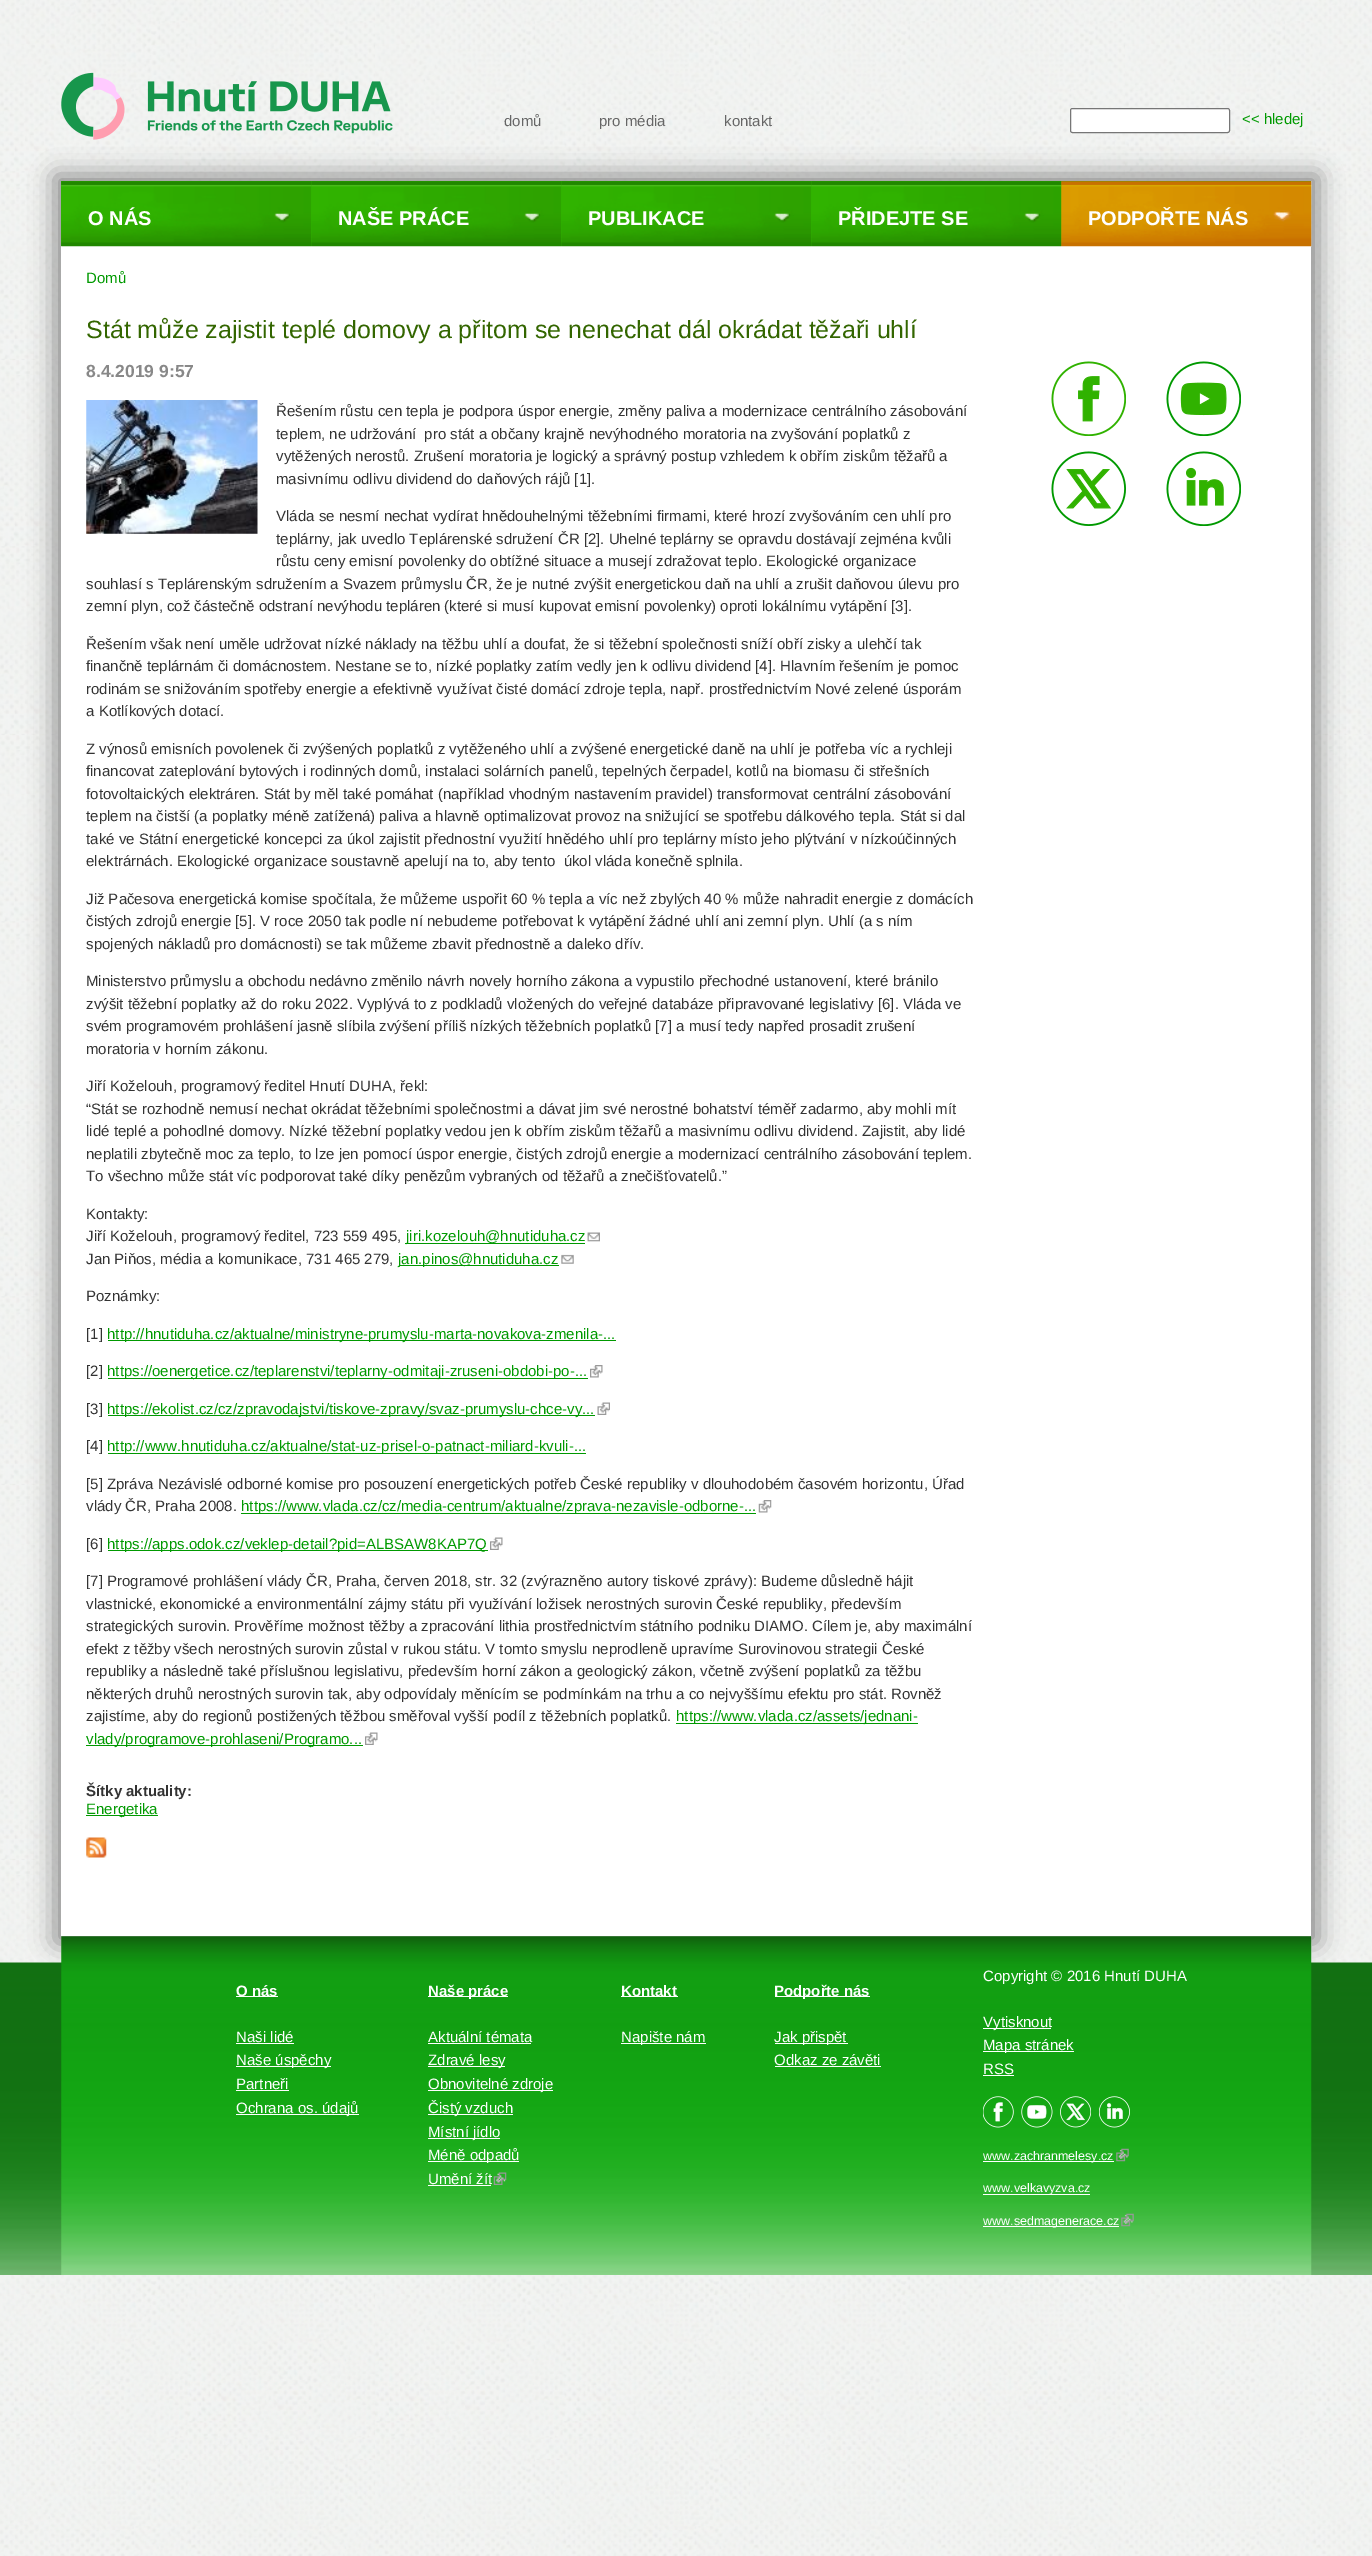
%!PS
<< /PageSize [1372 2556] /PageUsesTransparency true >> setpagedevice
/alpha { dup .setfillconstantalpha .setstrokeconstantalpha } def
/roundrect { 5 dict begin { /r /h /w /y /x } { exch def } forall
  x r add y moveto x w add y 2 copy h add r arct x w add y h add x 1 index r arct
  x y h add x y r arct x y 2 copy exch w add exch r arct closepath end } def
/shadow { 12 dict begin { /a /b /q /h /w /y /x } { exch def } forall gsave /was 0 def
  9 -2 -9 { dup b mul 4 div /e exch def 1 sub .425 mul 2.718 exch exp 1 add a .99 .min exch div /now exch def
    1 1 now sub 1 was sub div sub alpha /was now def
    w h .min e 2 mul add 0 gt { x e sub y e sub w e 2 mul add h e 2 mul add
      q e add b .6 mul add w h .min 2 div e add .min 0 .max roundrect fill } if } for grestore end } def
/picture { 5 dict begin { /h /w /y /x /name } { exch def } forall
  gsave x y translate w h scale
  w h 8 [w 0 0 h 0 0] name (r) file false 3 colorimage grestore end } def
0 .pushpdf14devicefilter
0 2556 translate 1 -1 scale
4 setmiterlimit
1 setgray
0 0 1372 2556 rectfill
(img1.rgb) 0 0 1372 2556 picture
0.533 setgray
55 175 1263 1768 0 12.5 1 shadow
(img2.rgb) 61 72 332 68 picture
/LiberationSans-Regular [15 0 0 -15 0 0] selectfont
0.4 setgray
504 126 moveto (domů) show
599 126 moveto (pro média) show
724 126 moveto (kontakt) show
1 setgray
1070.5 108.5 159 24 2 roundrect gsave fill grestore
0.463 setgray
stroke
0 0.6 0 setrgbcolor
1242 124 moveto (<< hledej) show
1 setgray
61 246 1250 1690 rectfill
0.188 0.698 0 setrgbcolor
61 181 250 65 rectfill
(img3.rgb) 61 181 251 66 picture
/LiberationSans-Bold [20 0 0 -20 0 0] selectfont
1 setgray
88 225 moveto (O NÁS) show
0.188 0.698 0 setrgbcolor
311 181 250 65 rectfill
(img4.rgb) 311 181 251 66 picture
1 setgray
338 225 moveto (NAŠE PRÁCE) show
0.188 0.698 0 setrgbcolor
561 181 250 65 rectfill
(img5.rgb) 561 181 251 66 picture
1 setgray
588 225 moveto (PUBLIKACE) show
0.188 0.698 0 setrgbcolor
811 181 250 65 rectfill
(img6.rgb) 811 181 251 66 picture
1 setgray
838 225 moveto (PŘIDEJTE SE) show
0.188 0.698 0 setrgbcolor
1061 181 250 65 rectfill
(img7.rgb) 1061 181 251 66 picture
1 setgray
1088 225 moveto (PODPOŘTE NÁS) show
/LiberationSans-Regular [15 0 0 -15 0 0] selectfont
0 0.6 0 setrgbcolor
86 283 moveto (Domů) show
/LiberationSans-Regular [25 0 0 -25 0 0] selectfont
0.2 0.4 0 setrgbcolor
86 338 moveto (Stát může zajistit teplé domovy a přitom se nenechat dál okrádat těžaři uhlí) show
/LiberationSans-Bold [17.5 0 0 -17.5 0 0] selectfont
0.533 setgray
86 377 moveto (8.4.2019 9:57) show
(img8.rgb) 86 400 172 134 picture
/LiberationSans-Regular [15 0 0 -15 0 0] selectfont
0.2 setgray
276 416 moveto (Řešením růstu cen tepla je podpora úspor energie, změny paliva a modernizace centrálního zásobování) show
276 439 moveto (teplem, ne udržování  pro stát a občany krajně nevýhodného moratoria na zvyšování poplatků z) show
276 461 moveto (vytěžených nerostů. Zrušení moratoria je logický a správný postup vzhledem k obřím ziskům těžařů a) show
276 484 moveto (masivnímu odlivu dividend do daňových rájů [1].) show
276 521 moveto (Vláda se nesmí nechat vydírat hnědouhelnými těžebními firmami, které hrozí zvyšováním cen uhlí pro) show
276 544 moveto (teplárny, jak uvedlo Teplárenské sdružení ČR [2]. Uhelné teplárny se opravdu dostávají zejména kvůli) show
276 566 moveto (růstu ceny emisní povolenky do obtížné situace a musejí zdražovat teplo. Ekologické organizace) show
86 589 moveto (souhlasí s Teplárenským sdružením a Svazem průmyslu ČR, že je nutné zvýšit energetickou daň na uhlí a zrušit daňovou úlevu pro) show
86 611 moveto (zemní plyn, což částečně odstraní nevýhodu tepláren \(které si musí kupovat emisní povolenky\) oproti lokálnímu vytápění [3].) show
86 649 moveto (Řešením však není uměle udržovat nízké náklady na těžbu uhlí a doufat, že si těžební společnosti sníží obří zisky a ulehčí tak) show
86 671 moveto (finančně teplárnám či domácnostem. Nestane se to, nízké poplatky zatím vedly jen k odlivu dividend [4]. Hlavním řešením je pomoc) show
86 694 moveto (rodinám se snižováním spotřeby energie a efektivně využívat čisté domácí zdroje tepla, např. prostřednictvím Nové zelené úsporám) show
86 716 moveto (a Kotlíkových dotací.) show
86 754 moveto (Z výnosů emisních povolenek či zvýšených poplatků z vytěženého uhlí a zvýšené energetické daně na uhlí je potřeba víc a rychleji) show
86 776 moveto (financovat zateplování bytových i rodinných domů, instalaci solárních panelů, tepelných čerpadel, kotlů na biomasu či střešních) show
86 799 moveto (fotovoltaických elektráren. Stát by měl také pomáhat \(například vhodným nastavením pravidel\) transformovat centrální zásobování) show
86 821 moveto (teplem na čistší \(a poplatky méně zatížená\) paliva a hlavně optimalizovat provoz na snižující se spotřebu dálkového tepla. Stát si dal) show
86 844 moveto (také ve Státní energetické koncepci za úkol zajistit přednostní využití hnědého uhlí pro teplárny místo jeho plýtvání v nízkoúčinných) show
86 866 moveto (elektrárnách. Ekologické organizace soustavně apelují na to, aby tento  úkol vláda konečně splnila.) show
86 904 moveto (Již Pačesova energetická komise spočítala, že můžeme uspořit 60 % tepla a víc než zbylých 40 % může nahradit energie z domácích) show
86 926 moveto (čistých zdrojů energie [5]. V roce 2050 tak podle ní nebudeme potřebovat k vytápění žádné uhlí ani zemní plyn. Uhlí \(a s ním) show
86 949 moveto (spojených nákladů pro domácnosti\) se tak můžeme zbavit přednostně a daleko dřív.) show
86 986 moveto (Ministerstvo průmyslu a obchodu nedávno změnilo návrh novely horního zákona a vypustilo přechodné ustanovení, které bránilo) show
86 1009 moveto (zvýšit těžební poplatky až do roku 2022. Vyplývá to z podkladů vložených do veřejné databáze připravované legislativy [6]. Vláda ve) show
86 1031 moveto (svém programovém prohlášení jasně slíbila zvýšení příliš nízkých těžebních poplatků [7] a musí tedy napřed prosadit zrušení) show
86 1054 moveto (moratoria v horním zákonu.) show
86 1091 moveto (Jiří Koželouh, programový ředitel Hnutí DUHA, řekl:) show
86 1114 moveto (“Stát se rozhodně nemusí nechat okrádat těžebními společnostmi a dávat jim své nerostné bohatství téměř zadarmo, aby mohli mít) show
86 1136 moveto (lidé teplé a pohodlné domovy. Nízké těžební poplatky vedou jen k obřím ziskům těžařů a masivnímu odlivu dividend. Zajistit, aby lidé) show
86 1159 moveto (neplatili zbytečně moc za teplo, to lze jen pomocí úspor energie, čistých zdrojů energie a modernizací centrálního zásobování teplem.) show
86 1181 moveto (To všechno může stát víc podporovat také díky penězům vybraných od těžařů a znečišťovatelů.”) show
86 1219 moveto (Kontakty:) show
86 1241 moveto (Jiří Koželouh, programový ředitel, 723 559 495,) show
0 0.6 0 setrgbcolor
405 1243 180 1 rectfill
406 1241 moveto (jiri.kozelouh@hnutiduha.cz) show
(img9.rgb) 587 1232 13 10 picture
0.2 setgray
86 1264 moveto (Jan Piňos, média a komunikace, 731 465 279,) show
0 0.6 0 setrgbcolor
399 1265 160 1 rectfill
398 1264 moveto (jan.pinos@hnutiduha.cz) show
(img10.rgb) 561 1254 13 10 picture
0.2 setgray
86 1301 moveto (Poznámky:) show
86 1339 moveto ([1]) show
0 0.6 0 setrgbcolor
108 1340 508 1 rectfill
107 1339 moveto (http://hnutiduha.cz/aktualne/ministryne-prumyslu-marta-novakova-zmenila-...) show
0.2 setgray
86 1376 moveto ([2]) show
0 0.6 0 setrgbcolor
108 1378 480 1 rectfill
107 1376 moveto (https://oenergetice.cz/teplarenstvi/teplarny-odmitaji-zruseni-obdobi-po-...) show
(img11.rgb) 590 1365 13 13 picture
0.2 setgray
86 1414 moveto ([3]) show
0 0.6 0 setrgbcolor
108 1415 487 1 rectfill
107 1414 moveto (https://ekolist.cz/cz/zpravodajstvi/tiskove-zpravy/svaz-prumyslu-chce-vy...) show
(img12.rgb) 597 1402 13 13 picture
0.2 setgray
86 1451 moveto ([4]) show
0 0.6 0 setrgbcolor
108 1453 478 1 rectfill
107 1451 moveto (http://www.hnutiduha.cz/aktualne/stat-uz-prisel-o-patnact-miliard-kvuli-...) show
0.2 setgray
86 1489 moveto ([5] Zpráva Nezávislé odborné komise pro posouzení energetických potřeb České republiky v dlouhodobém časovém horizontu, Úřad) show
86 1511 moveto (vlády ČR, Praha 2008.) show
0 0.6 0 setrgbcolor
241 1513 515 1 rectfill
241 1511 moveto (https://www.vlada.cz/cz/media-centrum/aktualne/zprava-nezavisle-odborne-...) show
(img13.rgb) 758 1500 14 13 picture
0.2 setgray
86 1549 moveto ([6]) show
0 0.6 0 setrgbcolor
108 1550 380 1 rectfill
107 1549 moveto (https://apps.odok.cz/veklep-detail?pid=ALBSAW8KAP7Q) show
(img14.rgb) 490 1537 13 13 picture
0.2 setgray
86 1586 moveto ([7] Programové prohlášení vlády ČR, Praha, červen 2018, str. 32 \(zvýrazněno autory tiskové zprávy\): Budeme důsledně hájit) show
86 1609 moveto (vlastnické, ekonomické a environmentální zájmy státu při využívání ložisek nerostných surovin České republiky, především) show
86 1631 moveto (strategických surovin. Prověříme možnost těžby a zpracování lithia prostřednictvím státního podniku DIAMO. Cílem je, aby maximální) show
86 1654 moveto (efekt z těžby všech nerostných surovin zůstal v rukou státu. V tomto smyslu neprodleně upravíme Surovinovou strategii České) show
86 1676 moveto (republiky a následně také příslušnou legislativu, především horní zákon a geologický zákon, včetně zvýšení poplatků za těžbu) show
86 1699 moveto (některých druhů nerostných surovin tak, aby odpovídaly měnícím se podmínkám na trhu a co nejvyššímu efektu pro stát. Rovněž) show
86 1721 moveto (zajistíme, aby do regionů postižených těžbou směřoval vyšší podíl z těžebních poplatků.) show
0 0.6 0 setrgbcolor
676 1723 242 1 rectfill
676 1721 moveto (https://www.vlada.cz/assets/jednani-) show
86 1745 277 1 rectfill
86 1744 moveto (vlady/programove-prohlaseni/Programo...) show
(img15.rgb) 365 1732 13 13 picture
/LiberationSans-Bold [15 0 0 -15 0 0] selectfont
0.2 setgray
86 1796 moveto (Šítky aktuality:) show
0 0.6 0 setrgbcolor
86 1815 72 1 rectfill
/LiberationSans-Regular [15 0 0 -15 0 0] selectfont
86 1814 moveto (Energetika) show
(img16.rgb) 86 1837 21 21 picture
(img17.rgb) 1051 361 75 75 picture
(img18.rgb) 1166 361 75 75 picture
(img19.rgb) 1051 451 75 75 picture
(img20.rgb) 1166 451 75 75 picture
(img21.rgb) 0 1962 1372 313 picture
(img22.rgb) 61 1936 1251 339 picture
1 setgray
236 1996 42 1 rectfill
/LiberationSans-Bold [15 0 0 -15 0 0] selectfont
236 1996 moveto (O nás) show
/LiberationSans-Regular [15 0 0 -15 0 0] selectfont
236 2042 moveto (Naši lidé) show
236 2043 58 1 rectfill
236 2066 95 1 rectfill
236 2065 moveto (Naše úspěchy) show
236 2089 moveto (Partneři) show
236 2090 53 1 rectfill
236 2114 123 1 rectfill
236 2113 moveto (Ochrana os. údajů) show
428 1996 80 1 rectfill
/LiberationSans-Bold [15 0 0 -15 0 0] selectfont
428 1996 moveto (Naše práce) show
/LiberationSans-Regular [15 0 0 -15 0 0] selectfont
428 2042 moveto (Aktuální témata) show
428 2043 103 1 rectfill
428 2066 77 1 rectfill
428 2065 moveto (Zdravé lesy) show
428 2090 125 1 rectfill
428 2089 moveto (Obnovitelné zdroje) show
428 2114 85 1 rectfill
428 2113 moveto (Čistý vzduch) show
428 2138 72 1 rectfill
428 2137 moveto (Místní jídlo) show
428 2161 91 1 rectfill
428 2160 moveto (Méně odpadů) show
428 2184 moveto (Umění žít) show
428 2185 63 1 rectfill
(img23.rgb) 493 2172 14 13 picture
621 1996 57 1 rectfill
/LiberationSans-Bold [15 0 0 -15 0 0] selectfont
621 1996 moveto (Kontakt) show
621 2043 85 1 rectfill
/LiberationSans-Regular [15 0 0 -15 0 0] selectfont
621 2042 moveto (Napište nám) show
775 1996 95 1 rectfill
/LiberationSans-Bold [15 0 0 -15 0 0] selectfont
774 1996 moveto (Podpořte nás) show
775 2043 73 1 rectfill
/LiberationSans-Regular [15 0 0 -15 0 0] selectfont
774 2042 moveto (Jak přispět) show
774 2065 moveto (Odkaz ze závěti) show
775 2066 106 1 rectfill
983 1981 moveto (Copyright © 2016 Hnutí DUHA) show
983 2028 68 1 rectfill
983 2027 moveto (Vytisknout) show
983 2051 91 1 rectfill
983 2050 moveto (Mapa stránek) show
983 2074 moveto (RSS) show
983 2075 31 1 rectfill
(img24.rgb) 983 2096 31 32 picture
(img25.rgb) 1021 2096 32 32 picture
(img26.rgb) 1060 2096 31 32 picture
(img27.rgb) 1099 2096 31 32 picture
983 2161 131 1 rectfill
/LiberationSans-Regular [12.5 0 0 -12.5 0 0] selectfont
983 2160 moveto (www.zachranmelesy.cz) show
(img28.rgb) 1116 2148 13 14 picture
983 2194 107 1 rectfill
983 2192 moveto (www.velkavyzva.cz) show
983 2226 136 1 rectfill
983 2225 moveto (www.sedmagenerace.cz) show
(img29.rgb) 1121 2213 13 14 picture
.poppdf14devicefilter showpage
